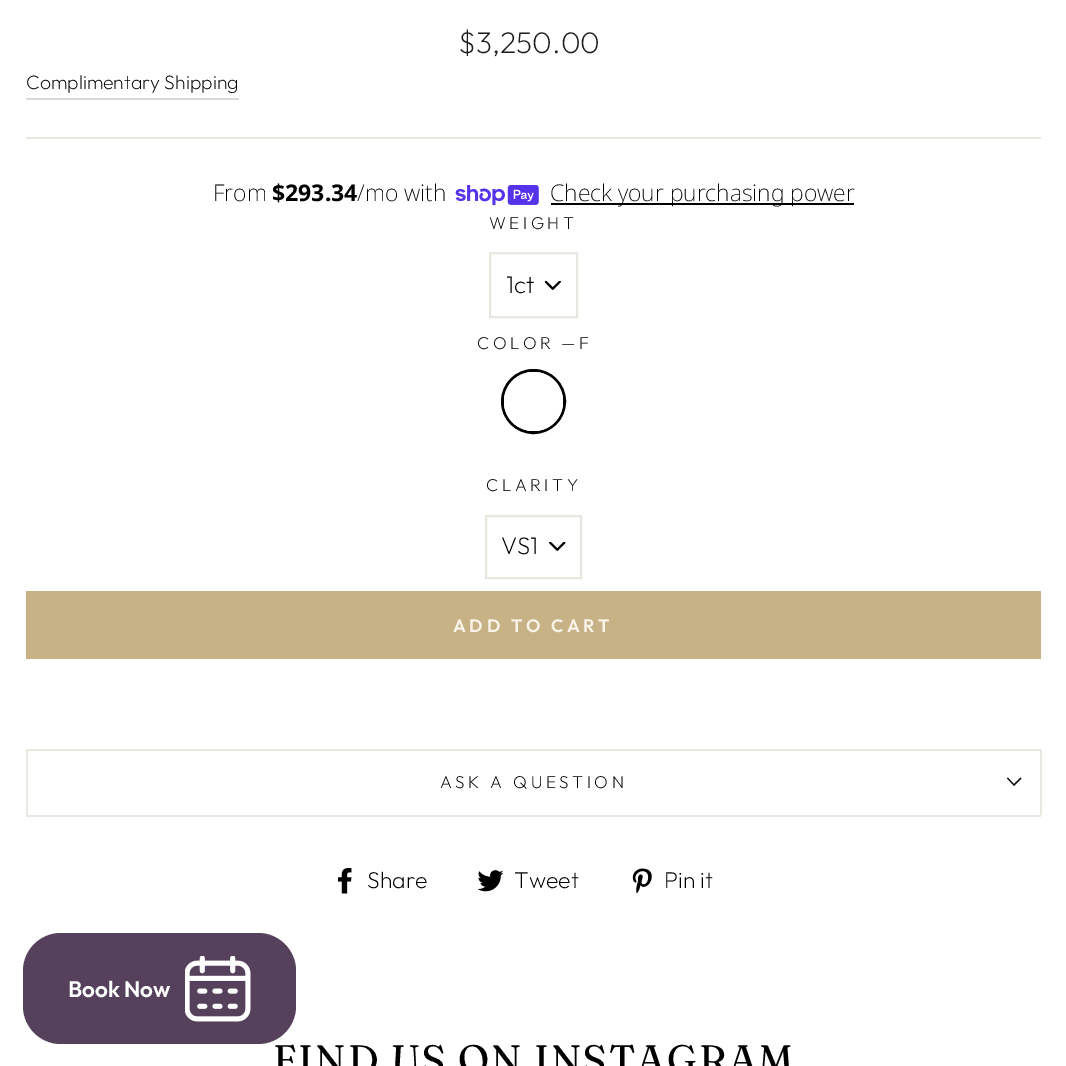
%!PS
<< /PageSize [1066 1066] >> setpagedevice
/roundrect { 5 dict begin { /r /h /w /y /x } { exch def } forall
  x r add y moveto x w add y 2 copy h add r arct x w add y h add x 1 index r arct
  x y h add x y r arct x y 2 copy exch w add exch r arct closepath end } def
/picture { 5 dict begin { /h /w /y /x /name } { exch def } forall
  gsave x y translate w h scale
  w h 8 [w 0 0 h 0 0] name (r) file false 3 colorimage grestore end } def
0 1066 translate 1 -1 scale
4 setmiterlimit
1 setgray
0 0 1066 1066 rectfill
/Outfit-ExtraLight [30 0 0 -30 0 0] selectfont
0.11 0.114 0.114 setrgbcolor
458 53 moveto ($3,250.00) show
0.851 setgray
26 98 213 2 rectfill
/Outfit-ExtraLight [19.5 0 0 -19.5 0 0] selectfont
0 setgray
26 89 moveto (Complimentary Shipping) show
0.91 0.91 0.882 setrgbcolor
26 137 1015 2 rectfill
/NotoSans-ExtraLight [23 0 0 -23 0 0] selectfont
0 setgray
213 201 moveto (From) show
/NotoSans-Bold [23 0 0 -23 0 0] selectfont
272 201 moveto ($293.34) show
/NotoSans-ExtraLight [23 0 0 -23 0 0] selectfont
357 201 moveto (/mo with) show
(img1.rgb) 455 185 84 21 picture
551 203 303 2 rectfill
550 201 moveto (Check your purchasing power) show
/Outfit-ExtraLight [17.25 0 0 -17.25 0 0] selectfont
489 229 moveto 3.5 0 (WEIGHT) ashow
(img2.rgb) 545 281 16 9 picture
0.91 0.91 0.882 setrgbcolor
2 setlinewidth
490 253 87 64 rectstroke
/Outfit-ExtraLight [24 0 0 -24 0 0] selectfont
0 setgray
506 293 moveto (1ct) show
/Outfit-ExtraLight [17.25 0 0 -17.25 0 0] selectfont
477 349 moveto 3.5 0 (COLOR) ashow
561 349 moveto (— F) show
3 setlinewidth
newpath 533.5 401.5 31 0 360 arc closepath stroke
1 setgray
newpath 533.5 401.5 29.5 0 360 arc closepath fill
newpath 534 372 moveto 517 372 504 385 504 402 curveto 504 418 517 431 534 431 curveto 550 431 563 418 563 402 curveto 563 385 550 372 534 372 curveto closepath 534 377 moveto 501 377 501 426 534 426 curveto 566 426 566 377 534 377 curveto closepath eofill
0 setgray
486 491 moveto 3.5 0 (CLARITY) ashow
(img3.rgb) 549 542 17 9 picture
0.91 0.91 0.882 setrgbcolor
2 setlinewidth
486 516 95 62 rectstroke
/Outfit-ExtraLight [24 0 0 -24 0 0] selectfont
0 setgray
501 554 moveto (VS1) show
0.776 0.698 0.522 setrgbcolor
26 591 1015 68 rectfill
/Outfit-SemiBold [18 0 0 -18 0 0] selectfont
0.98 0.953 0.914 setrgbcolor
453 632 moveto 3.6 0 (ADD TO CART) ashow
0.91 0.91 0.882 setrgbcolor
26 815 1015 2 rectfill
26 749 1015 2 rectfill
1040 749 2 66 rectfill
26 749 2 66 rectfill
/Outfit-ExtraLight [17.25 0 0 -17.25 0 0] selectfont
0 setgray
440 788 moveto 3.5 0 (ASK A QUESTION) ashow
1.1 setlinewidth
newpath 1007.5 778 moveto 1014 785 lineto 1021 778 lineto stroke
(img4.rgb) 338 868 14 26 picture
/Outfit-ExtraLight [23 0 0 -23 0 0] selectfont
367 888 moveto (Share) show
(img5.rgb) 477 870 27 22 picture
514 888 moveto (Tweet) show
(img6.rgb) 632 868 20 26 picture
664 888 moveto (Pin it) show
/Fraunces-Regular [39.5 0 0 -39.5 0 0] selectfont
273 1073 moveto 2 0 (FIND US ON INSTAGRAM) ashow
0.333 0.255 0.361 setrgbcolor
23 933 273 111 38 roundrect fill
/Outfit-SemiBold [22.5 0 0 -22.5 0 0] selectfont
1 setgray
68 997 moveto (Book Now) show
(img7.rgb) 185 956 66 66 picture
showpage
